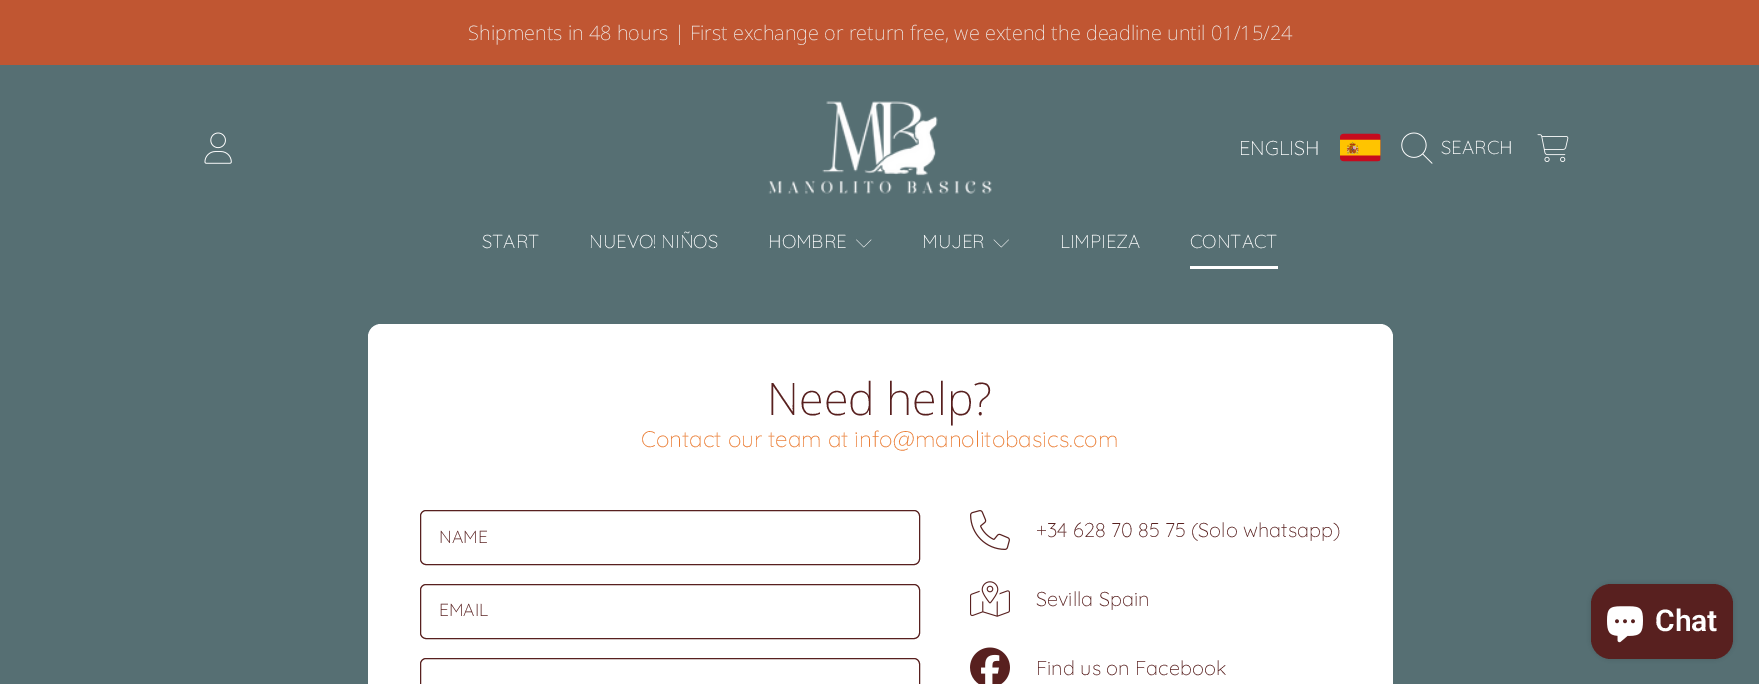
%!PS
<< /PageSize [1759 684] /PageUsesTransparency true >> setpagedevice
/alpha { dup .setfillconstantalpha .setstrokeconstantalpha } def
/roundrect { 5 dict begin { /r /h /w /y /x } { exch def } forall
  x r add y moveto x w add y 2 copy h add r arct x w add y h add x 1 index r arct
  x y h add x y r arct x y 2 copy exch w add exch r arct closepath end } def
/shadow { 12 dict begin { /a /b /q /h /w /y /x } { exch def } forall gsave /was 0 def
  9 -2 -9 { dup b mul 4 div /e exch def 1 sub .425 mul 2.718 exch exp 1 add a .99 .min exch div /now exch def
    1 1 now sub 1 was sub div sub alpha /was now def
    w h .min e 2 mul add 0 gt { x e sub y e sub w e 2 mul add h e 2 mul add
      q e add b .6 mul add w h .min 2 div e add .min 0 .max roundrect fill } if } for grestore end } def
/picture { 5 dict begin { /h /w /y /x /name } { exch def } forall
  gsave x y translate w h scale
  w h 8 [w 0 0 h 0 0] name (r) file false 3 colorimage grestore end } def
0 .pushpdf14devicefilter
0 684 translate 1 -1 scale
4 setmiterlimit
0.337 0.435 0.451 setrgbcolor
0 0 1759 684 rectfill
0.753 0.337 0.196 setrgbcolor
0 0 1759 65 rectfill
/NotoSans-ExtraLight [20 0 0 -20 0 0] selectfont
0.933 0.918 0.91 setrgbcolor
468 40 moveto (Shipments in 48 hours | First exchange or return free, we extend the deadline until 01/15/24) show
(img1.rgb) 204 132 28 32 picture
(img2.rgb) 768 101 224 93 picture
/Quicksand-Light [20 0 0 -20 0 0] selectfont
1 setgray
1239 155 moveto (ENGLISH) show
(img3.rgb) 1340 133 41 29 picture
(img4.rgb) 1401 132 32 32 picture
/Quicksand-Light [18.75 0 0 -18.75 0 0] selectfont
1441 154 moveto (SEARCH) show
(img5.rgb) 1537 134 32 28 picture
482 248 moveto (START) show
589 248 moveto (NUEVO! NIÑOS) show
768 248 moveto (HOMBRE) show
(img6.rgb) 856 239 16 9 picture
922 248 moveto (MUJER) show
(img7.rgb) 993 239 16 9 picture
1060 248 moveto (LIMPIEZA) show
1190 248 moveto (CONTACT) show
1190 266 88 3 rectfill
368 324 1025 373 13 roundrect fill
/NotoSans-ExtraLight [45 0 0 -45 0 0] selectfont
0.345 0.125 0.122 setrgbcolor
767 415 moveto (Need help?) show
/Quicksand-Light [22.5 0 0 -22.5 0 0] selectfont
0.918 0.494 0.212 setrgbcolor
641 447 moveto (Contact our team at info@manolitobasics.com) show
0.345 0.125 0.122 setrgbcolor
420.5 510.5 499 54 5.5 roundrect stroke
/Quicksand-Light [17.5 0 0 -17.5 0 0] selectfont
439 543 moveto (NAME) show
420.5 584.5 499 54 5.5 roundrect stroke
439 616 moveto (EMAIL) show
420.5 658.5 499 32 5.5 roundrect stroke
(img8.rgb) 970 510 40 40 picture
/Quicksand-Light [20 0 0 -20 0 0] selectfont
1036 537 moveto (+34 628 70 85 75 \(Solo whatsapp\)) show
(img9.rgb) 970 581 40 36 picture
1036 606 moveto (Sevilla Spain) show
(img10.rgb) 970 647 40 37 picture
1036 675 moveto (Find us on Facebook) show
0 setgray
1591 584 142 75 20 3 0.15 shadow
0.345 0.125 0.122 setrgbcolor
1591 584 142 75 20 roundrect fill
(img11.rgb) 1607 606 36 37 picture
/Roboto-SemiBold [30 0 0 -30 0 0] selectfont
1 setgray
1655 631 moveto (Chat) show
.poppdf14devicefilter showpage
